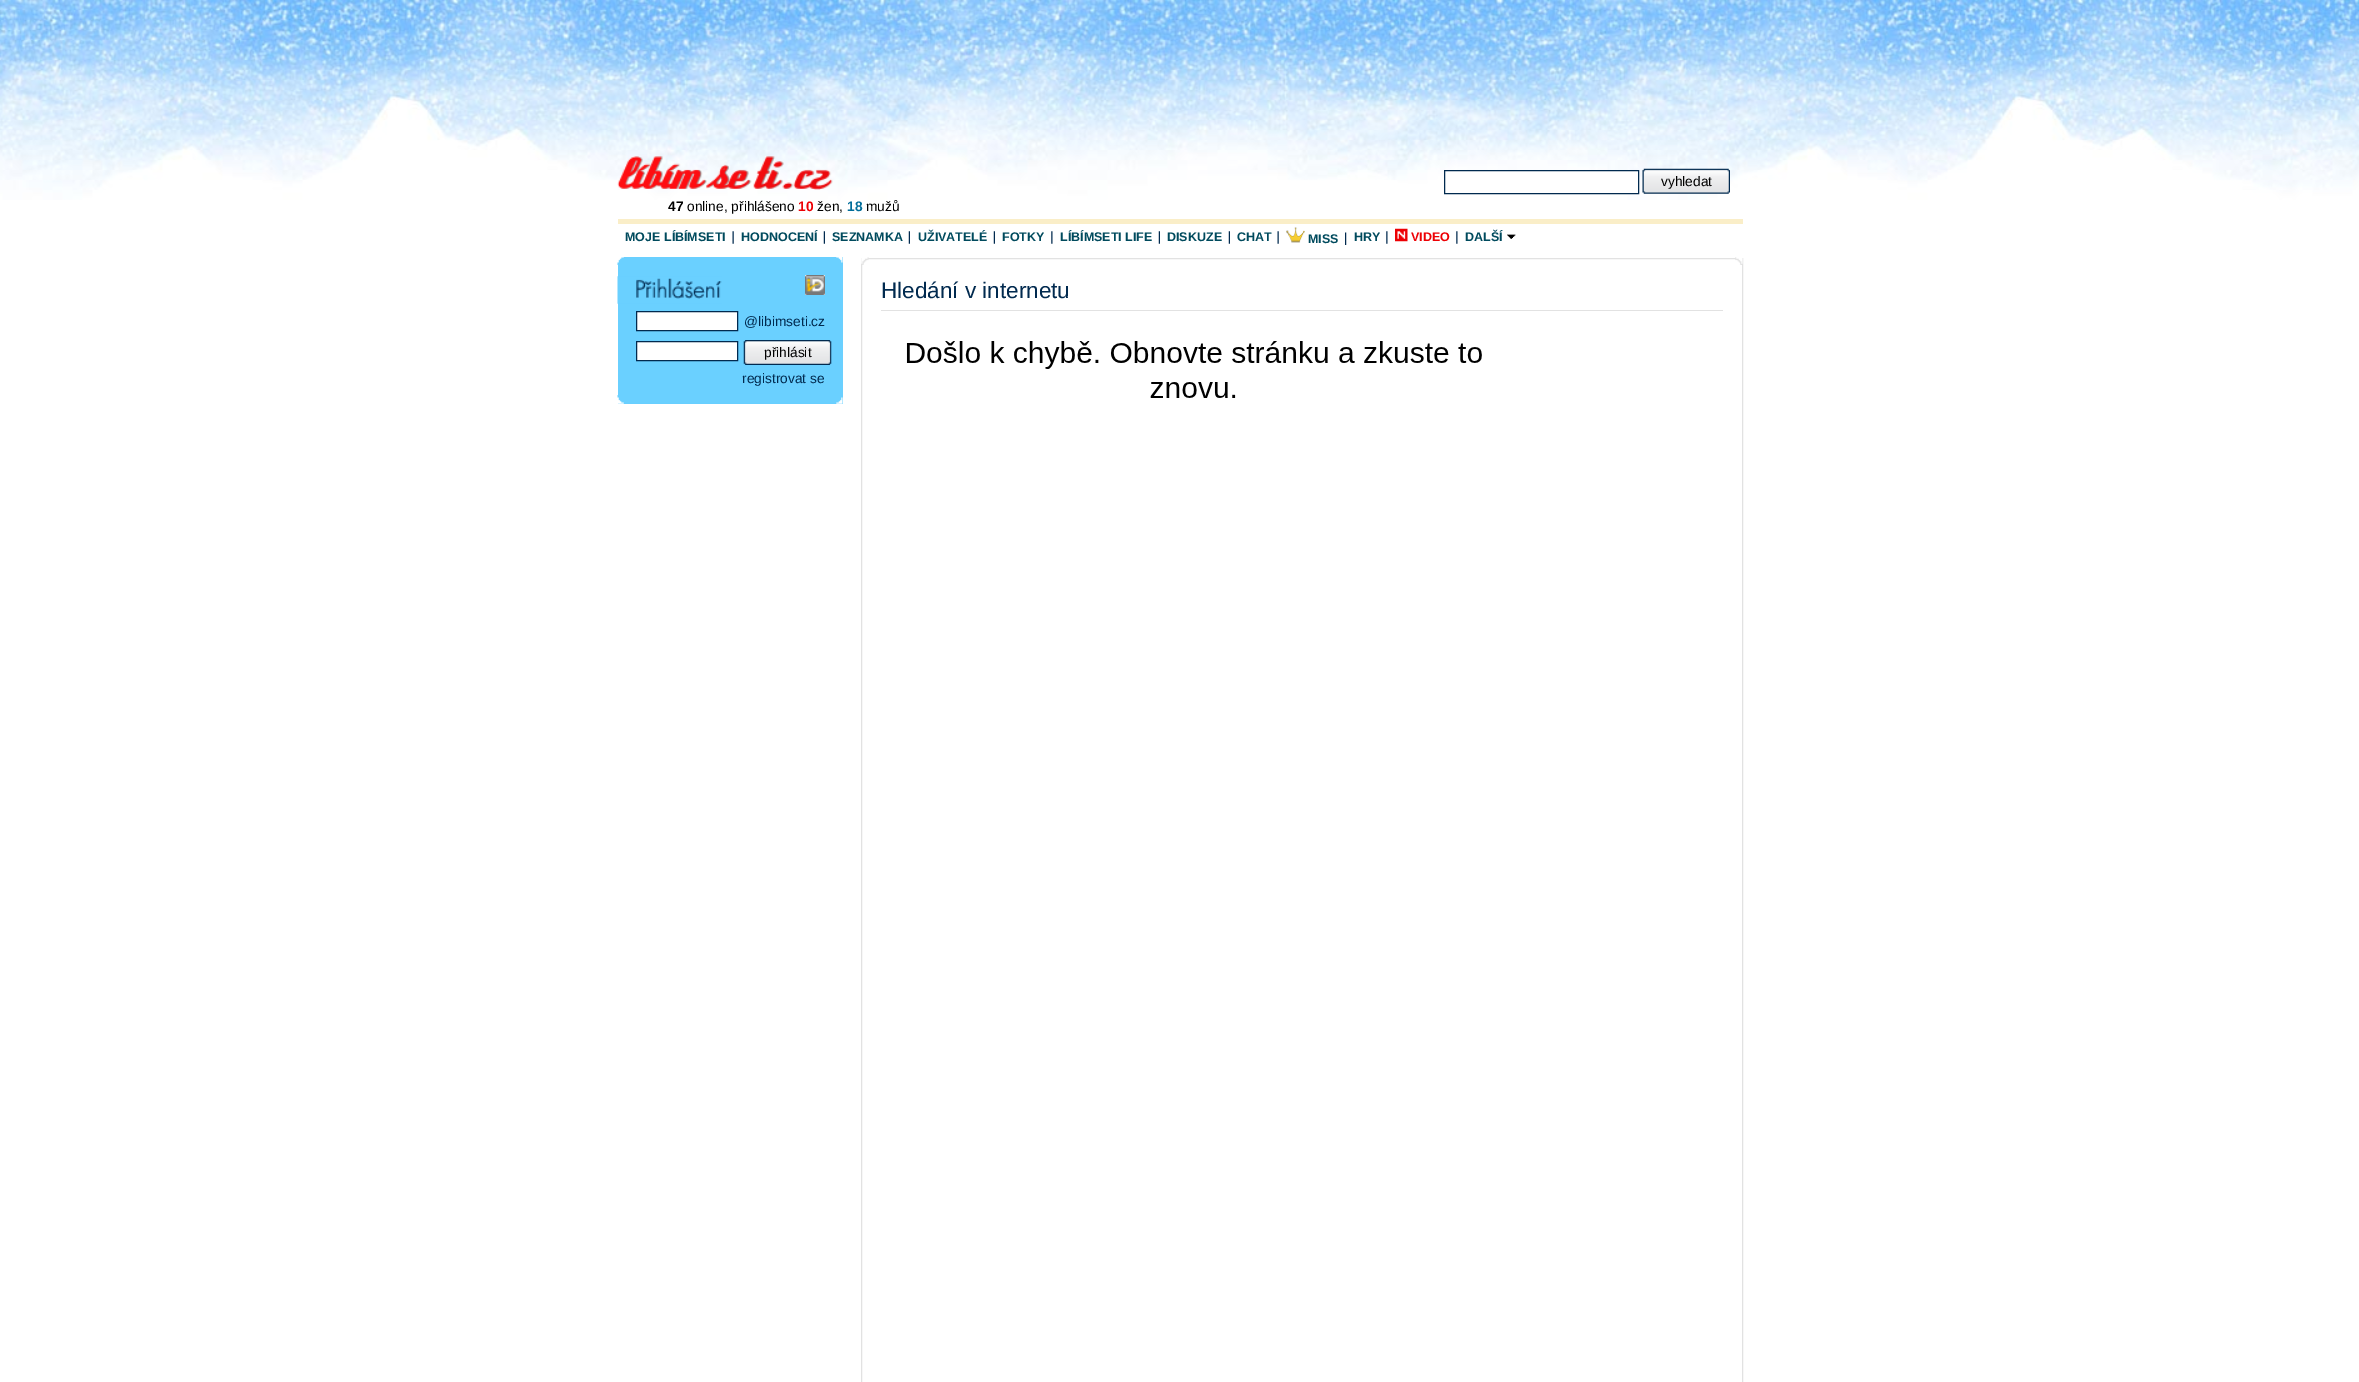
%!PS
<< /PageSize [2359 1382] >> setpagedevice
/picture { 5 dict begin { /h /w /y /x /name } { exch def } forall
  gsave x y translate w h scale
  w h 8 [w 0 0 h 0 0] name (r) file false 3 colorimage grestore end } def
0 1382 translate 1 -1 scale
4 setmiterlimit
1 setgray
0 0 2359 1382 rectfill
(img1.rgb) 0 0 2359 200 picture
(img2.rgb) 617 156 216 34 picture
newpath 1444.5 170.5 moveto 1638.5 170.5 lineto 1638.5 193.5 lineto 1444.5 193.5 lineto closepath gsave fill grestore
0.004 0.165 0.31 setrgbcolor
stroke
(img3.rgb) 1642 168 88 26 picture
/LiberationSans-Regular [13.75 0 0 -13.75 0 0] selectfont
0 setgray
1661 186 moveto (vyhledat) show
/LiberationSans-Bold [13.75 0 0 -13.75 0 0] selectfont
668 211 moveto (47) show
/LiberationSans-Regular [13.75 0 0 -13.75 0 0] selectfont
687 211 moveto (online, přihlášeno) show
/LiberationSans-Bold [13.75 0 0 -13.75 0 0] selectfont
0.929 0 0.016 setrgbcolor
798 211 moveto (10) show
/LiberationSans-Regular [13.75 0 0 -13.75 0 0] selectfont
0 setgray
817 211 moveto (žen,) show
/LiberationSans-Bold [13.75 0 0 -13.75 0 0] selectfont
0.004 0.427 0.604 setrgbcolor
847 211 moveto (18) show
/LiberationSans-Regular [13.75 0 0 -13.75 0 0] selectfont
0 setgray
866 211 moveto (mužů) show
0.98 0.933 0.784 setrgbcolor
618 219 1125 5 rectfill
(img4.rgb) 732 231 2 13 picture
/LiberationSans-Bold [12.5 0 0 -12.5 0 0] selectfont
0 0.29 0.365 setrgbcolor
625 241 moveto (MOJE LÍBÍMSETI) show
(img5.rgb) 823 231 2 13 picture
741 241 moveto (HODNOCENÍ) show
(img5.rgb) 908 231 2 13 picture
832 241 moveto (SEZNAMKA) show
(img5.rgb) 993 231 2 13 picture
918 241 moveto (UŽIVATELÉ) show
(img6.rgb) 1051 231 2 13 picture
1002 241 moveto (FOTKY) show
(img5.rgb) 1158 231 2 13 picture
1060 241 moveto (LÍBÍMSETI LIFE) show
(img5.rgb) 1228 231 2 13 picture
1167 241 moveto (DISKUZE) show
(img4.rgb) 1277 231 2 13 picture
1237 241 moveto (CHAT) show
(img7.rgb) 1345 232 2 13 picture
(img8.rgb) 1286 227 19 16 picture
1308 243 moveto (MISS) show
(img6.rgb) 1386 231 2 13 picture
1354 241 moveto (HRY) show
(img6.rgb) 1456 231 2 13 picture
(img9.rgb) 1395 228 13 14 picture
0.929 0 0.016 setrgbcolor
1411 241 moveto (VIDEO) show
0 0.29 0.365 setrgbcolor
1465 241 moveto (DALŠÍ) show
(img10.rgb) 1507 234 9 5 picture
0.886 setgray
861.5 258.5 881 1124 rectstroke
(img11.rgb) 861 257 8 8 picture
(img12.rgb) 1735 257 8 8 picture
881 310 842 1 rectfill
/LiberationSans-Regular [22.5 0 0 -22.5 0 0] selectfont
0.004 0.165 0.31 setrgbcolor
881 298 moveto (Hledání v internetu) show
(img13.rgb) 906 341 576 57 picture
0.416 0.816 1 setrgbcolor
618 257 225 147 rectfill
(img14.rgb) 617 256 226 9 picture
(img15.rgb) 617 276 105 28 picture
1 setgray
618 256 226 1 rectfill
805 275 20 20 rectfill
(img16.rgb) 805 275 20 20 picture
newpath 636.5 311.5 moveto 737.5 311.5 lineto 737.5 330.5 lineto 636.5 330.5 lineto closepath gsave fill grestore
0.004 0.165 0.31 setrgbcolor
stroke
/LiberationSans-Regular [13.75 0 0 -13.75 0 0] selectfont
744 326 moveto (@libimseti.cz) show
1 setgray
newpath 636.5 341.5 moveto 737.5 341.5 lineto 737.5 360.5 lineto 636.5 360.5 lineto closepath gsave fill grestore
0.004 0.165 0.31 setrgbcolor
stroke
(img17.rgb) 743 340 89 25 picture
0 setgray
764 357 moveto (přihlásit) show
0.004 0.165 0.31 setrgbcolor
742 383 moveto (registrovat se) show
(img18.rgb) 617 395 226 9 picture
showpage
